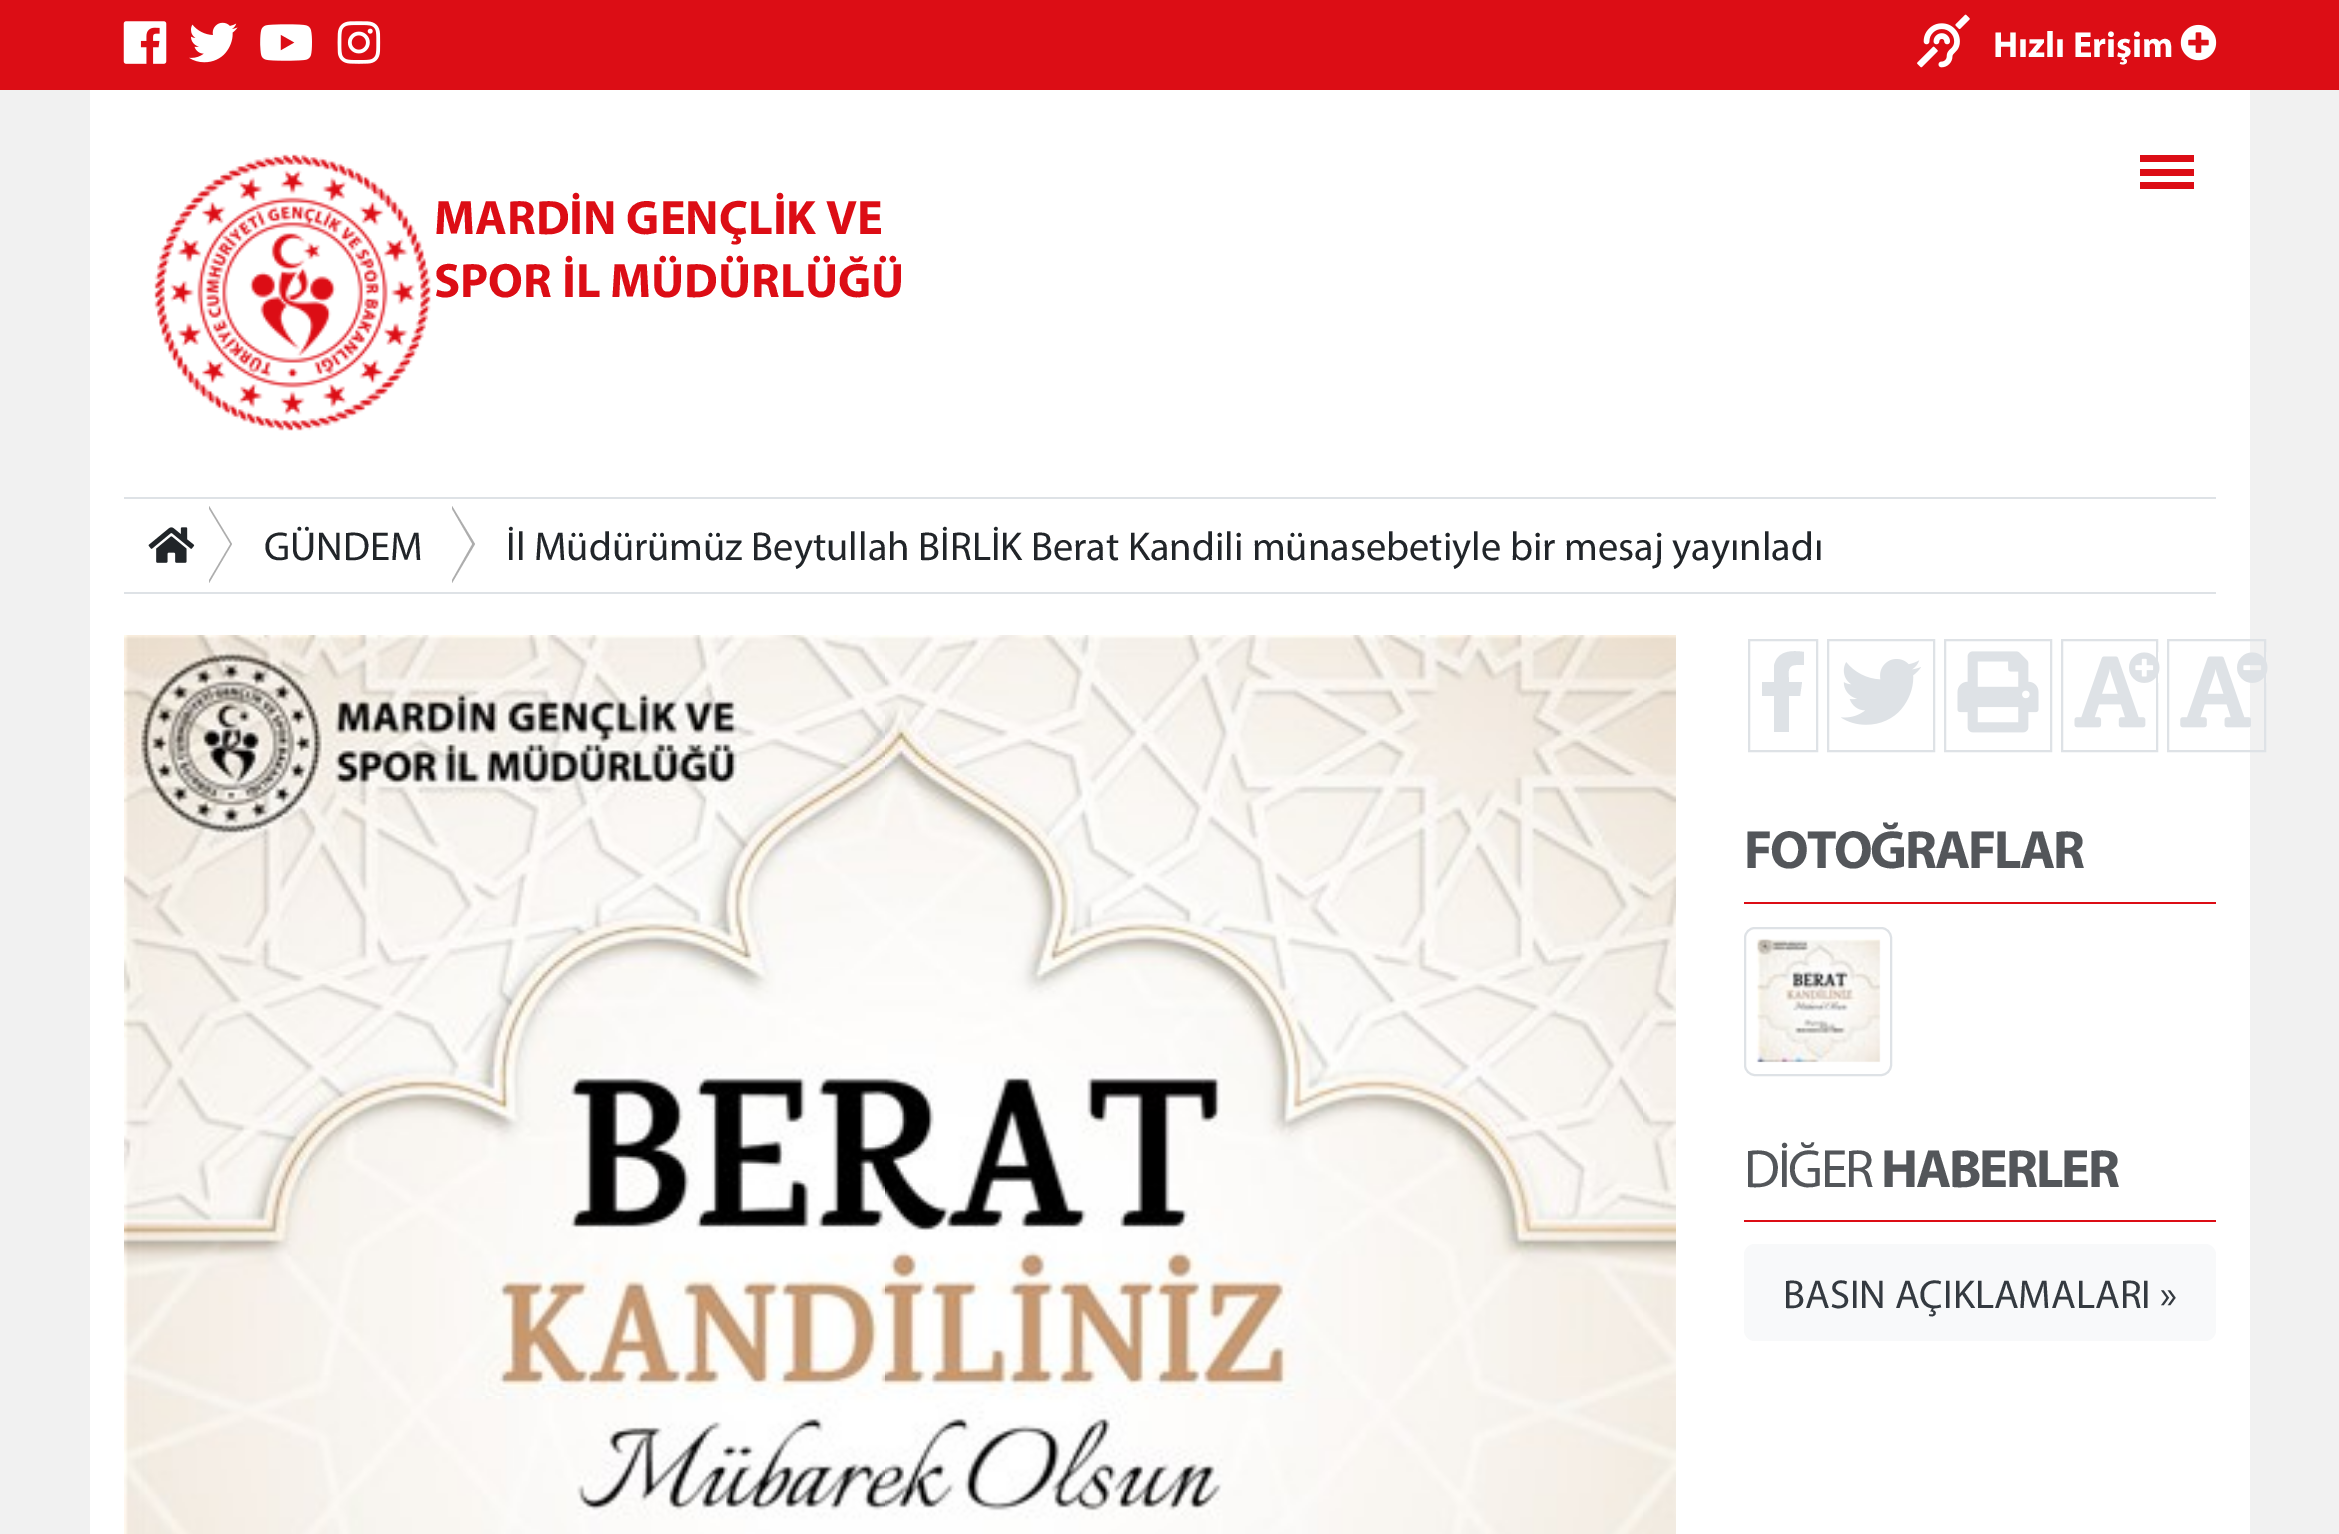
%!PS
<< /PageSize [2339 1534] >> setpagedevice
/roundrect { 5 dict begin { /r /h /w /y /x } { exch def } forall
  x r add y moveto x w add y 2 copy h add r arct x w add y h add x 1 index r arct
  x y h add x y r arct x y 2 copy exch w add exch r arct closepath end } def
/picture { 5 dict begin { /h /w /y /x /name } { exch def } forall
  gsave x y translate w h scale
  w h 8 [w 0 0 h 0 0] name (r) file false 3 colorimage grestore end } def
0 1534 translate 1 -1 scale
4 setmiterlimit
0.945 setgray
0 0 2339 1534 rectfill
0.863 0.051 0.082 setrgbcolor
0 0 2339 90 rectfill
(img1.rgb) 123 21 44 43 picture
(img2.rgb) 189 22 49 41 picture
(img3.rgb) 260 24 52 37 picture
(img4.rgb) 337 21 44 43 picture
(img5.rgb) 1917 14 53 54 picture
/Myriad-Bold [36.5 0 0 -36.5 0 0] selectfont
1 setgray
1993 57 moveto (Hızlı Erişim) show
(img6.rgb) 2180 24 37 37 picture
90 90 2160 1444 rectfill
0.863 0.051 0.082 setrgbcolor
2140 169 54 7 rectfill
2140 155 54 7 rectfill
2140 182 54 7 rectfill
(img7.rgb) 154 154 277 277 picture
/Myriad-Bold [48.5 0 0 -48.5 0 0] selectfont
434 234 moveto (MARDİN GENÇLİK VE) show
434 297 moveto (SPOR İL MÜDÜRLÜĞÜ) show
0.871 0.886 0.902 setrgbcolor
124 497 2092 2 rectfill
124 592 2092 2 rectfill
0.678 setgray
newpath 209 583 moveto 209 506 lineto 232 544 lineto closepath fill
1 setgray
newpath 207 583 moveto 207 506 lineto 230 544 lineto closepath fill
(img8.rgb) 148 527 47 36 picture
0.678 setgray
newpath 452 583 moveto 452 506 lineto 475 544 lineto closepath fill
1 setgray
newpath 450 583 moveto 450 506 lineto 472 544 lineto closepath fill
/Myriad-Regular [40.5 0 0 -40.5 0 0] selectfont
0.129 0.145 0.161 setrgbcolor
264 560 moveto (GÜNDEM) show
506 560 moveto (İl Müdürümüz Beytullah BİRLİK Berat Kandili münasebetiyle bir mesaj yayınladı) show
(img9.rgb) 124 635 1552 899 picture
0.871 0.886 0.902 setrgbcolor
2 setlinewidth
1749 640 68 111 rectstroke
newpath 1796 665 moveto 1786 665 1789 675 1789 682 curveto 1802 682 lineto 1800 696 lineto 1789 696 lineto 1789 732 lineto 1774 732 lineto 1774 696 lineto 1762 696 lineto 1762 682 lineto 1774 682 lineto 1774 666 lineto 1777 651 1791 650 1804 652 curveto 1804 665 lineto closepath fill
1828 640 106 111 rectstroke
(img10.rgb) 1841 659 80 66 picture
1945 640 106 111 rectstroke
(img11.rgb) 1957 651 82 82 picture
2062 640 95 111 rectstroke
(img13.rgb) 2074 656 72 72 picture
(img12.rgb) 2129 652 31 31 picture
2168 640 97 111 rectstroke
(img14.rgb) 2180 656 71 72 picture
(img15.rgb) 2237 652 31 31 picture
0.863 0.051 0.082 setrgbcolor
1744 902 472 2 rectfill
/Myriad-Bold [54 0 0 -54 0 0] selectfont
0.325 0.337 0.353 setrgbcolor
1744 868 moveto -2.25 0 (FOTOĞRAFLAR) ashow
0.871 0.886 0.902 setrgbcolor
1745 928 146 147 10 roundrect stroke
(img16.rgb) 1756 938 125 125 picture
0.863 0.051 0.082 setrgbcolor
1744 1220 472 2 rectfill
/Myriad-Regular [54 0 0 -54 0 0] selectfont
0.325 0.337 0.353 setrgbcolor
1744 1187 moveto -2.25 0 (DİĞER) ashow
/Myriad-Bold [54 0 0 -54 0 0] selectfont
1881 1187 moveto -2.25 0 (HABERLER) ashow
0.973 0.976 0.98 setrgbcolor
1744 1244 472 97 11 roundrect fill
/Myriad-Regular [40.5 0 0 -40.5 0 0] selectfont
0.204 0.227 0.251 setrgbcolor
1783 1308 moveto (BASIN AÇIKLAMALARI ») show
showpage
